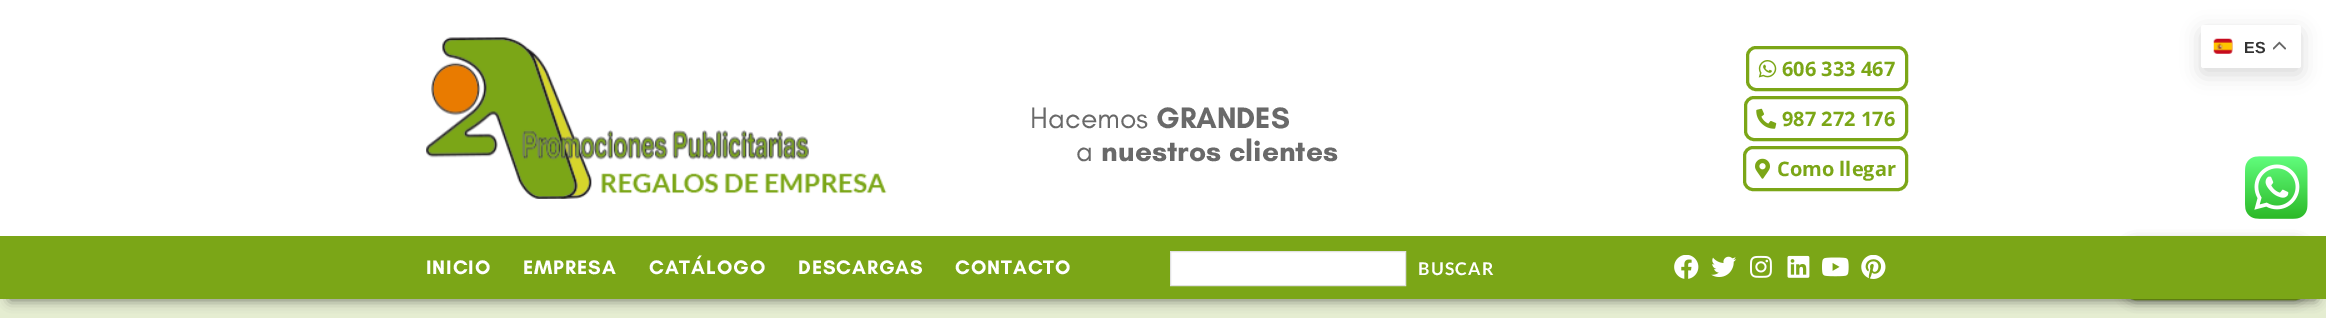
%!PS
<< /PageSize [2326 318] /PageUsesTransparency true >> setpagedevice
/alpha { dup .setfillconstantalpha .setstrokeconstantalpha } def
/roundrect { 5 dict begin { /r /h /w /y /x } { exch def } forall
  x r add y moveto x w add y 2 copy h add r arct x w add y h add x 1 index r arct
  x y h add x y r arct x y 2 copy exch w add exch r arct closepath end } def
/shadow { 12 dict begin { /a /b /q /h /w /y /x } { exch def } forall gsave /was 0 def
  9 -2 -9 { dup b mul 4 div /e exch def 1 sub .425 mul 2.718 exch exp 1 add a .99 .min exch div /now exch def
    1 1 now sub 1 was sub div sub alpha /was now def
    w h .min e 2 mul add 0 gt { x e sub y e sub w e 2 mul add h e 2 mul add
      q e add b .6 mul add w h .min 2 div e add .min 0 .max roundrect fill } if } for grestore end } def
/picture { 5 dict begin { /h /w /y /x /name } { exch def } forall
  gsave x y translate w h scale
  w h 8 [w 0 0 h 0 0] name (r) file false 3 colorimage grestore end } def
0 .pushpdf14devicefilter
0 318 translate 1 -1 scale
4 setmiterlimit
1 setgray
0 0 2326 318 rectfill
0 setgray
2201 31 100 43 2.5 9.5 0.15 shadow
1 setgray
2201 25 100 43 2.5 roundrect fill
(img1.rgb) 2213 38 20 16 picture
/LiberationSans-Bold [16 0 0 -16 0 0] selectfont
0.2 setgray
2244 53 moveto (ES) show
(img2.rgb) 2273 41 13 9 picture
(img3.rgb) 426 37 461 162 picture
/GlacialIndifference-Regular [30 0 0 -30 0 0] selectfont
0.412 setgray
1030 128 moveto (Hacemos) show
/GlacialIndifference-Bold [30 0 0 -30 0 0] selectfont
1156 128 moveto (GRANDES) show
/GlacialIndifference-Regular [30 0 0 -30 0 0] selectfont
1076 161 moveto (a) show
/GlacialIndifference-Bold [30 0 0 -30 0 0] selectfont
1101 161 moveto (nuestros clientes) show
0.482 0.651 0.09 setrgbcolor
3 setlinewidth
1747.5 47.5 159 42 8.5 roundrect stroke
(img4.rgb) 1758 60 19 18 picture
/OpenSans-Bold [20 0 0 -20 0 0] selectfont
1782 76 moveto (606 333 467) show
1745.5 97.5 161 42 8.5 roundrect stroke
(img5.rgb) 1756 108 21 21 picture
1782 126 moveto (987 272 176) show
1744.5 147.5 162 42 8.5 roundrect stroke
(img6.rgb) 1755 158 15 21 picture
1777 176 moveto (Como llegar) show
0.898 0.929 0.82 setrgbcolor
0 299 2326 19 rectfill
0 setgray
2123 243 185 57 13 6 0.5 shadow
0.482 0.651 0.09 setrgbcolor
2124.5 244.5 182 54 11.5 roundrect stroke
0 setgray
10 258 2306 42 0 6 0.5 shadow
0.482 0.651 0.09 setrgbcolor
0 236 2326 63 rectfill
/GlacialIndifference-Bold [20 0 0 -20 0 0] selectfont
1 setgray
426 274 moveto 0.9 0 (INICIO) ashow
523 274 moveto 0.9 0 (EMPRESA) ashow
649 274 moveto 0.9 0 (CATÁLOGO) ashow
798 274 moveto 0.9 0 (DESCARGAS) ashow
955 274 moveto 0.9 0 (CONTACTO) ashow
newpath 1170.5 251.5 moveto 1405.5 251.5 lineto 1405.5 285.5 lineto 1170.5 285.5 lineto closepath gsave fill grestore
0.886 setgray
1 setlinewidth
stroke
/Lato-Bold [17.5 0 0 -17.5 0 0] selectfont
1 setgray
1418 275 moveto 1.25 0 (BUSCAR) ashow
(img7.rgb) 1674 255 25 24 picture
(img8.rgb) 1711 256 26 21 picture
(img9.rgb) 1750 255 22 23 picture
(img10.rgb) 1787 255 23 23 picture
(img11.rgb) 1822 257 27 20 picture
(img12.rgb) 1861 255 25 24 picture
(img13.rgb) 2245 156 63 63 picture
.poppdf14devicefilter showpage
